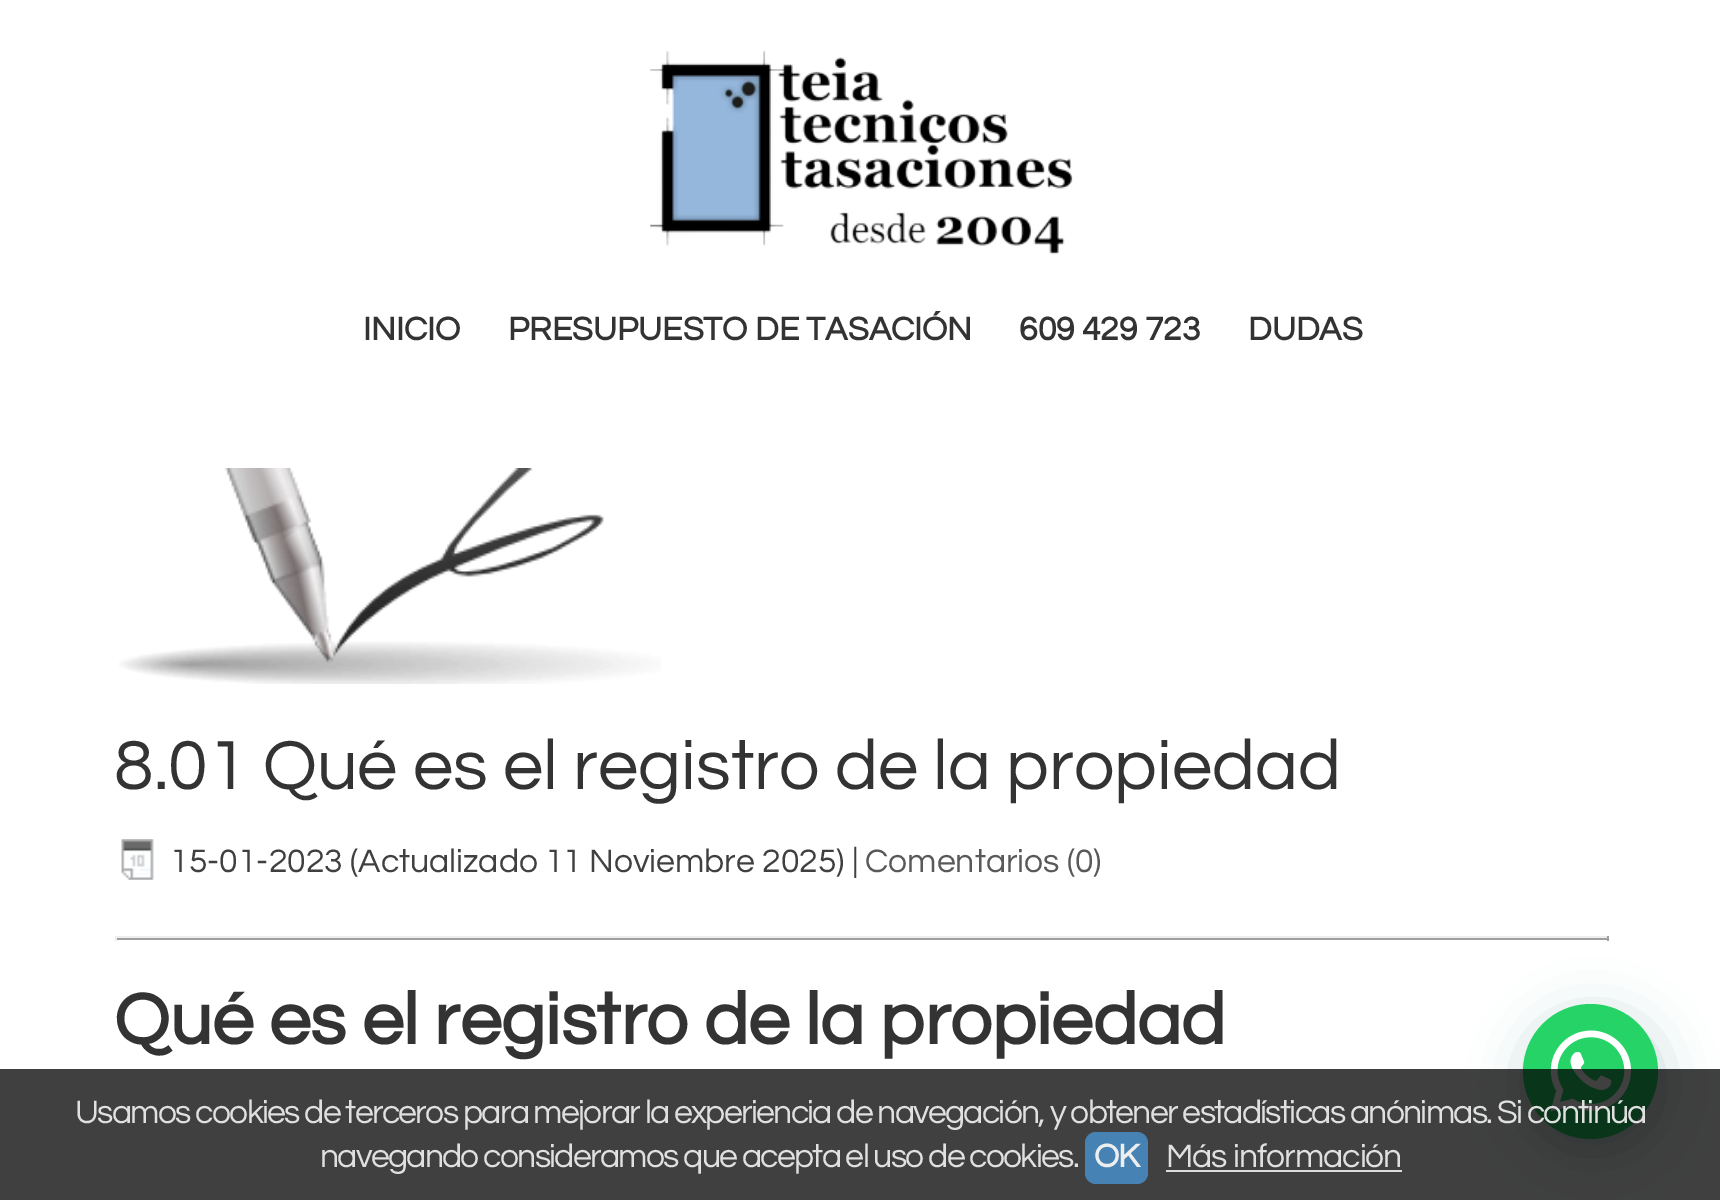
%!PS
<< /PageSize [1720 1200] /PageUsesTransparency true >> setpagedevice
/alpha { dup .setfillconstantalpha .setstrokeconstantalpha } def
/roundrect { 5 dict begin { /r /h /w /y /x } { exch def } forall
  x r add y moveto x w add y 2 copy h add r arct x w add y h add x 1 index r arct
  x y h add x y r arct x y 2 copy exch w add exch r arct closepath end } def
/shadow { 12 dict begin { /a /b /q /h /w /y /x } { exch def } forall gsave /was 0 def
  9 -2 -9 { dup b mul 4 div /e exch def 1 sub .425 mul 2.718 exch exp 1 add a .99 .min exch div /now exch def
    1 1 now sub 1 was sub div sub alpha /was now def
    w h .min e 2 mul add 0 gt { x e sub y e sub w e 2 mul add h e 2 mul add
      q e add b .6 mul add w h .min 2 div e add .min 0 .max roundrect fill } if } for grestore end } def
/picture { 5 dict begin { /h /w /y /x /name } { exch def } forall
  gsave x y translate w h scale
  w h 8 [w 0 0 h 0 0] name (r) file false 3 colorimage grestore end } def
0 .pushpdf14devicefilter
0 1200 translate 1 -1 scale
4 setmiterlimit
1 setgray
0 0 1720 1200 rectfill
(img1.rgb) 650 50 423 205 picture
/Questrial-Bold [33.75 0 0 -33.75 0 0] selectfont
0.2 setgray
363 340 moveto (INICIO) show
508 340 moveto (PRESUPUESTO DE TASACIÓN) show
1019 340 moveto (609 429 723) show
1248 340 moveto (DUDAS) show
(img2.rgb) 119 468 542 216 picture
/Questrial-Regular [72 0 0 -72 0 0] selectfont
114 789 moveto (8.01 Qué es el registro de la propiedad) show
(img3.rgb) 121 839 33 41 picture
/Questrial-Regular [33.75 0 0 -33.75 0 0] selectfont
0.251 setgray
170 872 moveto (15-01-2023 \(Actualizado 11 Noviembre 2025\) |) show
0.349 setgray
865 872 moveto (Comentarios \(0\)) show
0.933 setgray
115 936 1494 2 rectfill
0.624 setgray
1607 936 2 5 rectfill
115 938 1494 2 rectfill
0.933 setgray
115 936 2 5 rectfill
/Questrial-Bold [74.25 0 0 -74.25 0 0] selectfont
0.2 setgray
114 1044 moveto (Qué es el registro de la propiedad) show
0.027 0.369 0.329 setrgbcolor
1526 1017 135 135 67.5 27 0.24 shadow
0.145 0.827 0.4 setrgbcolor
newpath 1590.5 1071.5 67.5 0 360 arc closepath fill
(img4.rgb) 1550 1030 81 82 picture
0.75 alpha
0 setgray
0 1069 1720 131 rectfill
/Questrial-Regular [33.75 0 0 -33.75 0 0] selectfont
1 alpha
0.878 setgray
75 1123 moveto -1.69 0 (Usamos cookies de terceros para mejorar la experiencia de navegación, y obtener estadísticas anónimas. Si continúa) ashow
320 1167 moveto -1.69 0 (navegando consideramos que acepta el uso de cookies.) ashow
0.275 0.51 0.706 setrgbcolor
1085 1132 63 52 11 roundrect fill
/Questrial-Bold [33.75 0 0 -33.75 0 0] selectfont
0.933 setgray
1094 1167 moveto -1 0 (OK) ashow
/Questrial-Regular [33.75 0 0 -33.75 0 0] selectfont
0.878 setgray
1166 1167 moveto -1 0 (Más información) ashow
0.867 setgray
1166 1170 236 2 rectfill
.poppdf14devicefilter showpage
